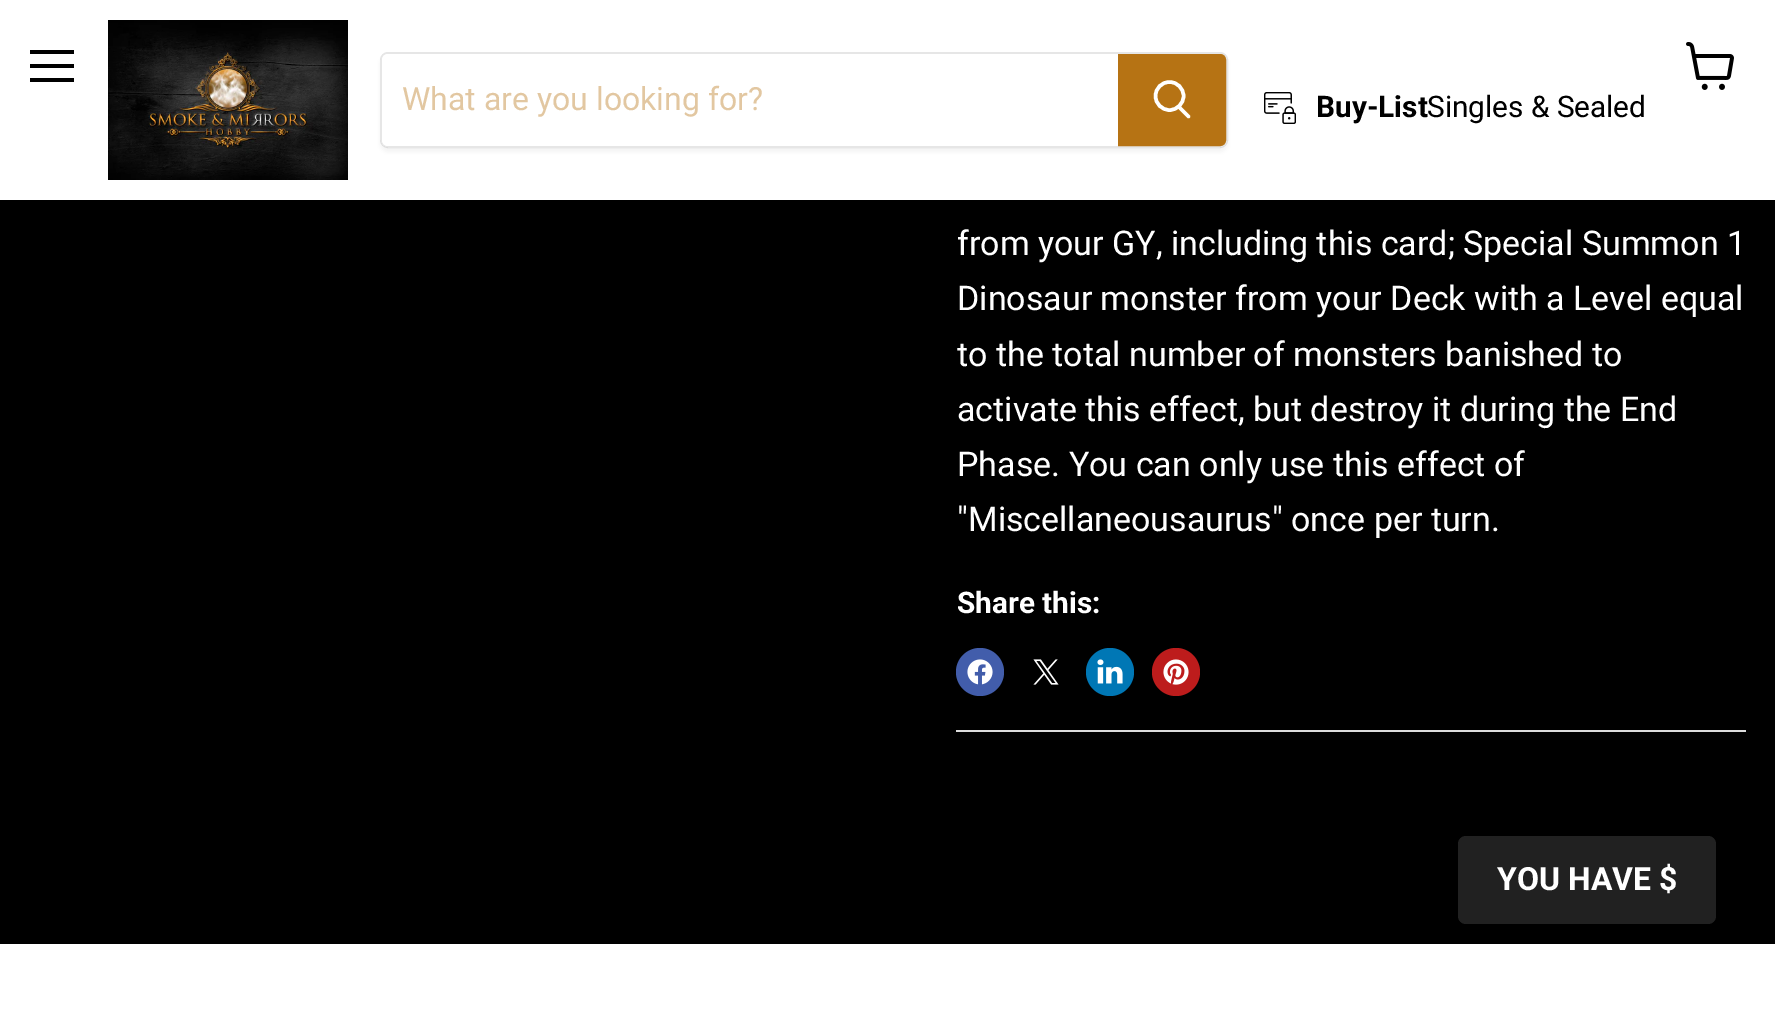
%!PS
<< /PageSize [1775 1024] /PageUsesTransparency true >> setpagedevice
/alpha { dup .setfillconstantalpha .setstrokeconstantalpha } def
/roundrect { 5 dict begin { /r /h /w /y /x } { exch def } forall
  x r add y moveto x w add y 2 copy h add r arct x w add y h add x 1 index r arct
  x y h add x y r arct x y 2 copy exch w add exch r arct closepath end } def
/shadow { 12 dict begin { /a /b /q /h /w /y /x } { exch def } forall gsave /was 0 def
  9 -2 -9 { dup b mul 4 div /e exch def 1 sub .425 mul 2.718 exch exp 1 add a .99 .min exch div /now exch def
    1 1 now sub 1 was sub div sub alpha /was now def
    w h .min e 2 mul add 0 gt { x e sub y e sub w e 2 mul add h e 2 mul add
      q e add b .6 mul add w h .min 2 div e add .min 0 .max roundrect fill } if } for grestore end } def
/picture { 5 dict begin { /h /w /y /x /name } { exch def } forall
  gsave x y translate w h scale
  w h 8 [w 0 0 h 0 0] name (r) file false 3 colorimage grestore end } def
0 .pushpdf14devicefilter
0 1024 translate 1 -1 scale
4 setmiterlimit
0 setgray
0 0 1775 1024 rectfill
1 setgray
0 0 1775 200 rectfill
0 setgray
30 50 44 4 rectfill
30 64 44 4 rectfill
30 78 44 4 rectfill
(img1.rgb) 1686 42 48 48 picture
(img2.rgb) 108 20 240 160 picture
gsave
newpath 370 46 moveto 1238 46 lineto 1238 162 lineto 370 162 lineto closepath 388 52 moveto 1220 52 lineto 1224.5 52 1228 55.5 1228 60 curveto 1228 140 lineto 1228 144.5 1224.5 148 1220 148 curveto 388 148 lineto 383.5 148 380 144.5 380 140 curveto 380 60 lineto 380 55.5 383.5 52 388 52 curveto closepath eoclip newpath
0.502 setgray
380 56 848 96 8 3 0.11 shadow
grestore
0.2 alpha
0.502 setgray
2 setlinewidth
381 53 846 94 7 roundrect stroke
1 alpha
1 setgray
newpath 388 54 moveto 1118 54 lineto 1118 146 lineto 388 146 lineto 384.5 146 382 143.5 382 140 curveto 382 60 lineto 382 56.5 384.5 54 388 54 curveto closepath fill
/Roboto-Regular [32 0 0 -32 0 0] selectfont
0.886 0.78 0.631 setrgbcolor
402 110 moveto (What are you looking for?) show
0.714 0.451 0.078 setrgbcolor
newpath 1119 55 moveto 1220 55 lineto 1223 55 1225 57 1225 60 curveto 1225 140 lineto 1225 143 1223 145 1220 145 curveto 1119 145 lineto closepath gsave fill grestore
stroke
1 setgray
3.5 setlinewidth
1 setlinecap
newpath 1188.5 116.5 moveto 1179 107 lineto stroke
0 setlinecap
newpath 1169.5 96 14 0 360 arc closepath stroke
(img3.rgb) 1264 92 32 32 picture
/Roboto-Bold [29.75 0 0 -29.75 0 0] selectfont
0 setgray
1316 117 moveto (Buy-List) show
/Roboto-Regular [29.75 0 0 -29.75 0 0] selectfont
1427 117 moveto (Singles & Sealed) show
/Roboto-Regular [34 0 0 -34 0 0] selectfont
1 setgray
957 255 moveto (from your GY, including this card; Special Summon 1) show
957 310 moveto (Dinosaur monster from your Deck with a Level equal) show
957 366 moveto (to the total number of monsters banished to) show
957 421 moveto (activate this effect, but destroy it during the End) show
957 476 moveto (Phase. You can only use this effect of) show
957 531 moveto ("Miscellaneousaurus" once per turn.) show
/Roboto-Bold [29.75 0 0 -29.75 0 0] selectfont
957 613 moveto (Share this:) show
0.259 0.365 0.671 setrgbcolor
newpath 980 672 24 0 360 arc closepath fill
(img4.rgb) 967 659 26 26 picture
(img5.rgb) 1033 659 26 26 picture
0 0.467 0.71 setrgbcolor
newpath 1110 672 24 0 360 arc closepath fill
(img6.rgb) 1097 659 26 25 picture
0.741 0.11 0.11 setrgbcolor
newpath 1176 672 24 0 360 arc closepath fill
(img7.rgb) 1163 659 26 26 picture
0.867 setgray
956 730 790 2 rectfill
0.129 setgray
1458 836 258 88 8 roundrect fill
/Roboto-Bold [32 0 0 -32 0 0] selectfont
1 setgray
1497 890 moveto (YOU HAVE $) show
0 944 1775 80 rectfill
.poppdf14devicefilter showpage
